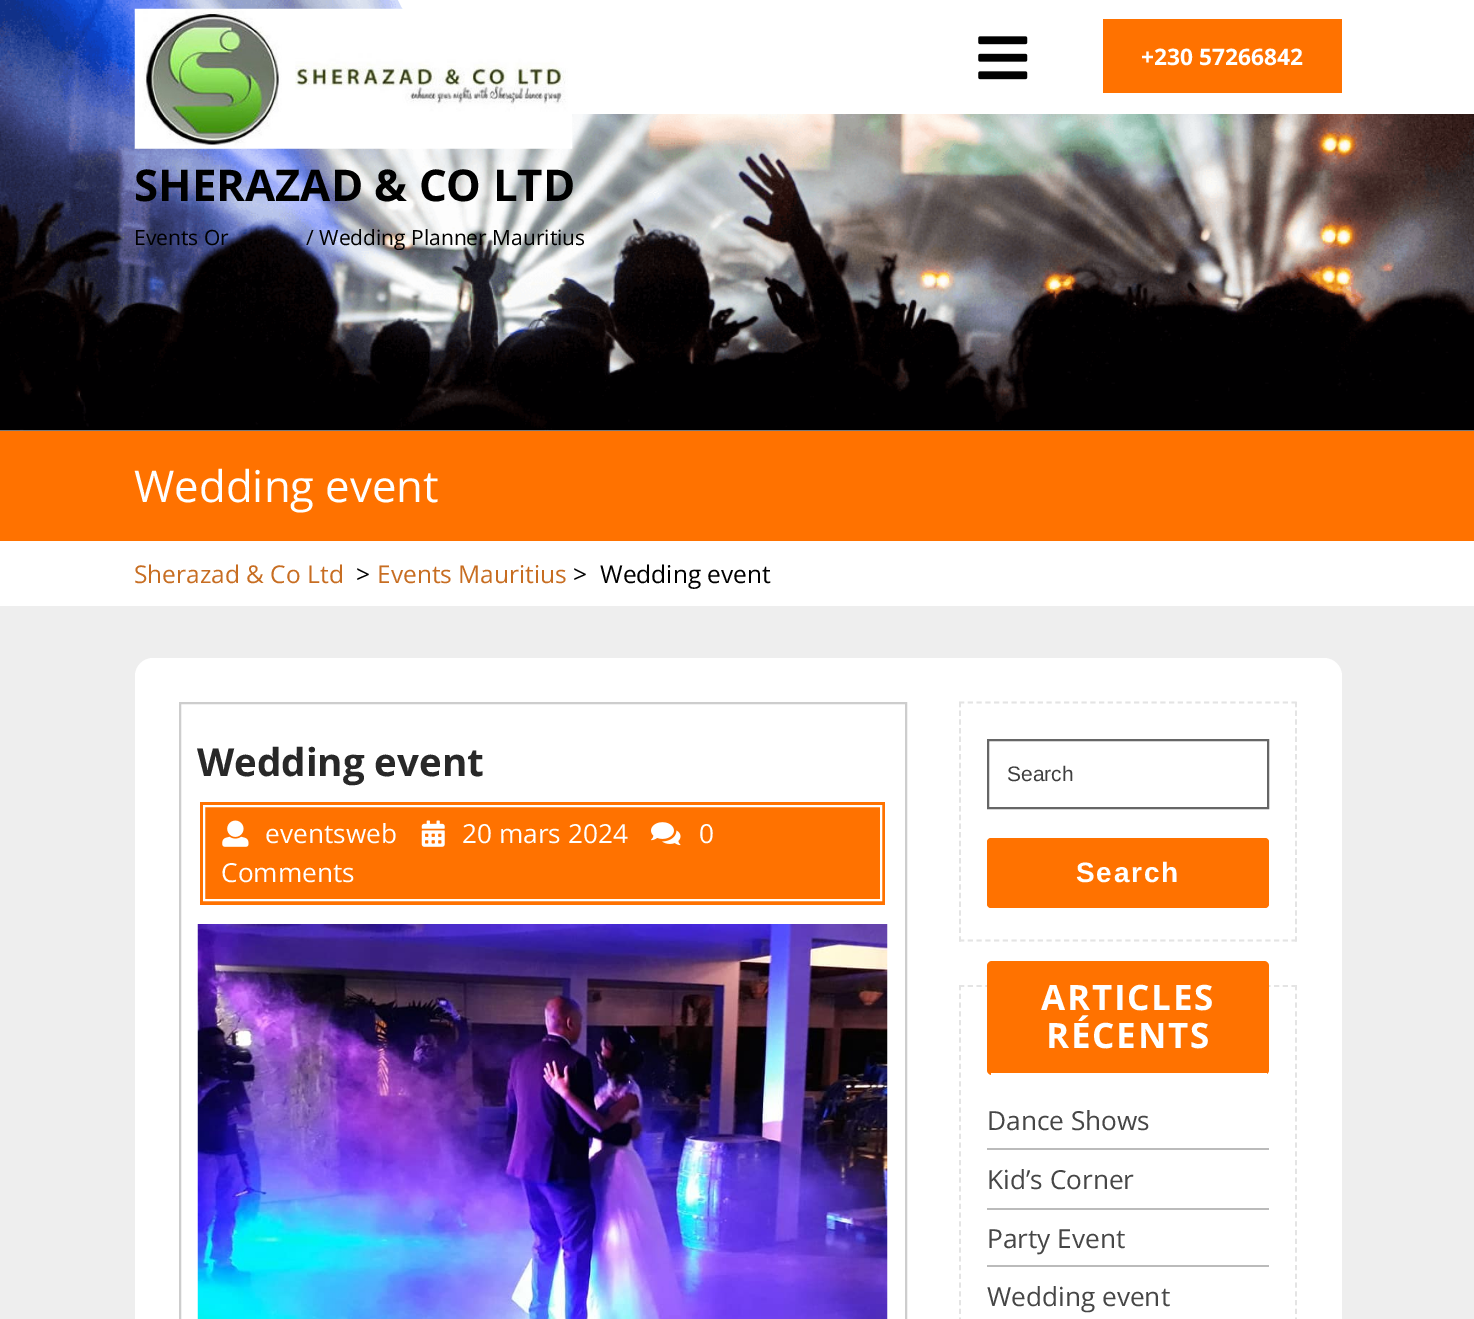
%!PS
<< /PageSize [1474 1319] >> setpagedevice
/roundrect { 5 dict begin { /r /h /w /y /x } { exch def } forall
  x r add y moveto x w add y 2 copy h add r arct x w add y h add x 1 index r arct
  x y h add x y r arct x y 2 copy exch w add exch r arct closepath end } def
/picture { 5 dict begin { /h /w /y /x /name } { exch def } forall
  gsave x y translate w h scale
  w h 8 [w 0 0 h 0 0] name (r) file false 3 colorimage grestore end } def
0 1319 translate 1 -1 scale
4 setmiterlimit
0.933 setgray
0 0 1474 1319 rectfill
(img3.rgb) 0 0 1474 431 picture
1 setgray
newpath 398 0 moveto 457 114 lineto 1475 114 lineto 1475 0 lineto closepath fill
(img1.rgb) 978 36 50 44 picture
1 0.447 0 setrgbcolor
1103 19 239 74 rectfill
/OpenSans-Bold [22.75 0 0 -22.75 0 0] selectfont
1 setgray
1141 65 moveto (+230 57266842) show
(img2.rgb) 134 8 439 141 picture
/OpenSans-Bold [43.75 0 0 -43.75 0 0] selectfont
0 setgray
134 201 moveto (SHERAZAD & CO LTD) show
/OpenSans-Regular [21 0 0 -21 0 0] selectfont
134 245 moveto (Events Or) show
306 245 moveto (/ Wedding Planner Mauritius) show
1 0.447 0 setrgbcolor
0 431 1474 110 rectfill
/OpenSans-Regular [43.75 0 0 -43.75 0 0] selectfont
1 setgray
134 502 moveto (Wedding event) show
0 541 1474 65 rectfill
/OpenSans-Regular [24.5 0 0 -24.5 0 0] selectfont
0.78 0.427 0.129 setrgbcolor
134 583 moveto (Sherazad & Co Ltd) show
0 setgray
356 583 moveto (>) show
0.78 0.427 0.129 setrgbcolor
377 583 moveto (Events Mauritius) show
0 setgray
573 583 moveto (>) show
600 583 moveto (Wedding event) show
1 setgray
135 658 1207 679 18 roundrect fill
0.804 setgray
2 setlinewidth
180 703 726 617 rectstroke
/OpenSans-Bold [38.5 0 0 -38.5 0 0] selectfont
0.157 setgray
197 776 moveto (Wedding event) show
1 0.447 0 setrgbcolor
200 802 685 103 rectfill
1 setgray
204 806 677 94 rectstroke
(img4.rgb) 651 822 30 24 picture
/OpenSans-Regular [26.25 0 0 -26.25 0 0] selectfont
699 843 moveto (0) show
221 882 moveto (Comments) show
(img5.rgb) 222 820 27 27 picture
265 843 moveto (eventsweb) show
(img6.rgb) 421 820 24 27 picture
462 843 moveto (20 mars 2024) show
(img7.rgb) 197 924 691 395 picture
0.894 setgray
1.8 setlinewidth
[5.25 3.5] 0 setdash
newpath 959 702.5 moveto 1297 702.5 lineto stroke
[5.25 3.43] 0 setdash
newpath 1296 702 moveto 1296 941.5 lineto stroke
[5.25 3.5] 0 setdash
newpath 959 940.5 moveto 1297 940.5 lineto stroke
[5.25 3.43] 0 setdash
newpath 960 702 moveto 960 941.5 lineto stroke
0.4 setgray
2 setlinewidth
[] 0 setdash
988 740 280 68 rectstroke
/LiberationSans-Regular [21 0 0 -21 0 0] selectfont
0.247 setgray
1007 781 moveto (Search) show
1 0.447 0 setrgbcolor
987 838 282 70 4 roundrect fill
/LiberationSans-Bold [28 0 0 -28 0 0] selectfont
1 setgray
1076 882 moveto 1.75 0 (Search) ashow
0.894 setgray
1.8 setlinewidth
[5.25 3.5] 0 setdash
newpath 959 986 moveto 1297 986 lineto stroke
newpath 1296 985 moveto 1296 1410.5 lineto stroke
newpath 960 985 moveto 960 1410.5 lineto stroke
1 0.447 0 setrgbcolor
987 961 282 114 5 roundrect fill
1 setgray
991 1073 276 2 rectfill
/OpenSans-Bold [35 0 0 -35 0 0] selectfont
1041 1010 moveto 1.75 0 (ARTICLES) ashow
1046 1048 moveto 1.75 0 (RÉCENTS) ashow
0.733 setgray
987 1148 282 2 rectfill
/OpenSans-Regular [26.25 0 0 -26.25 0 0] selectfont
0.275 setgray
987 1130 moveto (Dance Shows) show
0.733 setgray
987 1208 282 2 rectfill
0.275 setgray
987 1189 moveto (Kid’s Corner) show
0.733 setgray
987 1265 282 2 rectfill
0.275 setgray
987 1248 moveto (Party Event) show
987 1306 moveto (Wedding event) show
showpage
